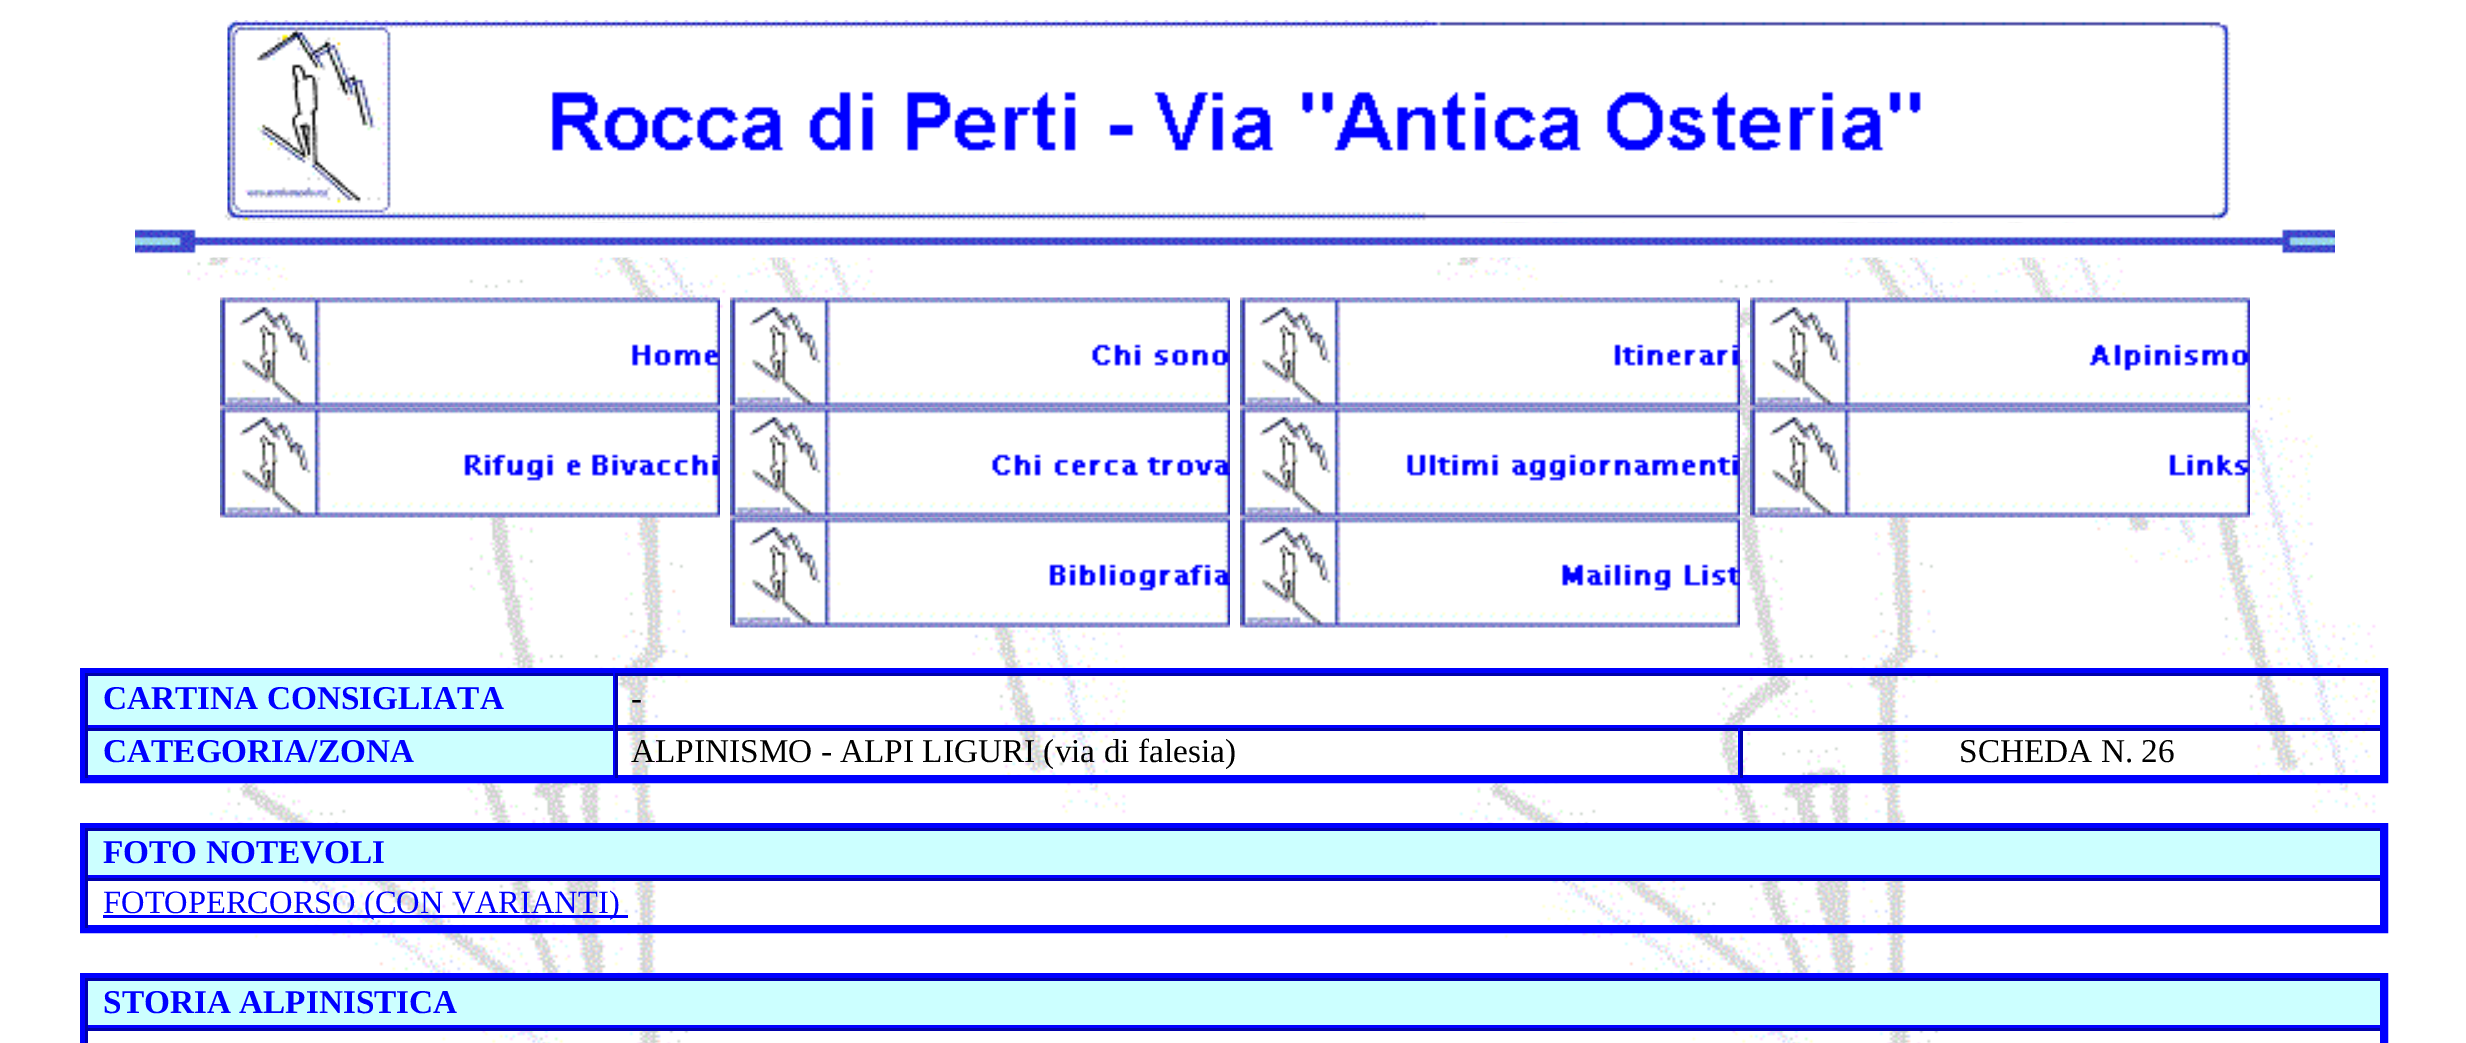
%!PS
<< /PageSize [2466 1043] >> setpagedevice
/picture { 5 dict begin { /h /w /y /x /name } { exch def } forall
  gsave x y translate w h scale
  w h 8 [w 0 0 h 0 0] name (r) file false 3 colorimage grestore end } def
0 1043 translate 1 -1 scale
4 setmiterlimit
1 setgray
0 0 2466 1043 rectfill
(img1.rgb) 187 49 2192 994 picture
(img2.rgb) 227 20 2004 203 picture
(img3.rgb) 135 222 2200 36 picture
(img4.rgb) 220 297 500 111 picture
(img5.rgb) 730 297 500 111 picture
(img6.rgb) 1240 297 500 111 picture
(img7.rgb) 1750 297 500 111 picture
(img8.rgb) 220 407 500 111 picture
(img9.rgb) 730 407 500 111 picture
(img10.rgb) 1240 407 500 111 picture
(img11.rgb) 1750 407 500 111 picture
(img12.rgb) 730 517 500 111 picture
(img13.rgb) 1240 517 500 111 picture
0 0 1 setrgbcolor
5 setlinewidth
82.5 670.5 2303 110 rectstroke
0.8 1 1 setrgbcolor
88 676 525 49 rectfill
0 0 0.667 setrgbcolor
85 673 2298 3 rectfill
0 0 1 setrgbcolor
613 673 2 55 rectfill
85 725 530 3 rectfill
0 0 0.667 setrgbcolor
85 673 3 55 rectfill
/LiberationSerif-Bold [33.3 0 0 -33.3 0 0] selectfont
0 0 1 setrgbcolor
103 709 moveto (CARTINA CONSIGLIATA) show
2380 673 3 55 rectfill
615 725 1768 3 rectfill
0 0 0.667 setrgbcolor
615 673 3 55 rectfill
/LiberationSerif-Regular [32.5 0 0 -32.5 0 0] selectfont
0 setgray
631 709 moveto (-) show
0.8 1 1 setrgbcolor
88 731 525 44 rectfill
0 0 0.667 setrgbcolor
85 728 2298 3 rectfill
0 0 1 setrgbcolor
613 728 2 50 rectfill
85 775 530 3 rectfill
0 0 0.667 setrgbcolor
85 728 3 50 rectfill
/LiberationSerif-Bold [33.3 0 0 -33.3 0 0] selectfont
0 0 1 setrgbcolor
103 762 moveto (CATEGORIA/ZONA) show
1738 728 2 50 rectfill
615 775 1125 3 rectfill
0 0 0.667 setrgbcolor
615 728 3 50 rectfill
/LiberationSerif-Regular [33.3 0 0 -33.3 0 0] selectfont
0 setgray
631 762 moveto (ALPINISMO - ALPI LIGURI \(via di falesia\)) show
0 0 1 setrgbcolor
2380 728 3 50 rectfill
1740 775 643 3 rectfill
0 0 0.667 setrgbcolor
1740 728 3 50 rectfill
0 setgray
1959 762 moveto (SCHEDA N. 26) show
0 0 1 setrgbcolor
82.5 825.5 2303 105 rectstroke
0.8 1 1 setrgbcolor
88 831 2292 44 rectfill
0 0 0.667 setrgbcolor
85 828 2298 3 rectfill
0 0 1 setrgbcolor
2380 828 3 50 rectfill
85 875 2298 3 rectfill
0 0 0.667 setrgbcolor
85 828 3 50 rectfill
/LiberationSerif-Bold [33.3 0 0 -33.3 0 0] selectfont
0 0 1 setrgbcolor
103 863 moveto (FOTO NOTEVOLI) show
0 0 0.667 setrgbcolor
85 878 2298 3 rectfill
0 0 1 setrgbcolor
2380 878 3 50 rectfill
85 925 2298 3 rectfill
0 0 0.667 setrgbcolor
85 878 3 50 rectfill
0 0 1 setrgbcolor
103 915 525 3 rectfill
/LiberationSerif-Regular [32.5 0 0 -32.5 0 0] selectfont
103 913 moveto (FOTOPERCORSO \(CON VARIANTI\)) show
82.5 975.5 2303 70 rectstroke
0.8 1 1 setrgbcolor
88 981 2292 44 rectfill
0 0 0.667 setrgbcolor
85 978 2298 3 rectfill
0 0 1 setrgbcolor
2380 978 3 50 rectfill
85 1025 2298 3 rectfill
0 0 0.667 setrgbcolor
85 978 3 50 rectfill
/LiberationSerif-Bold [33.3 0 0 -33.3 0 0] selectfont
0 0 1 setrgbcolor
103 1013 moveto (STORIA ALPINISTICA) show
0 0 0.667 setrgbcolor
85 1028 2298 3 rectfill
0 0 1 setrgbcolor
2380 1028 3 15 rectfill
0 0 0.667 setrgbcolor
85 1028 3 15 rectfill
showpage
